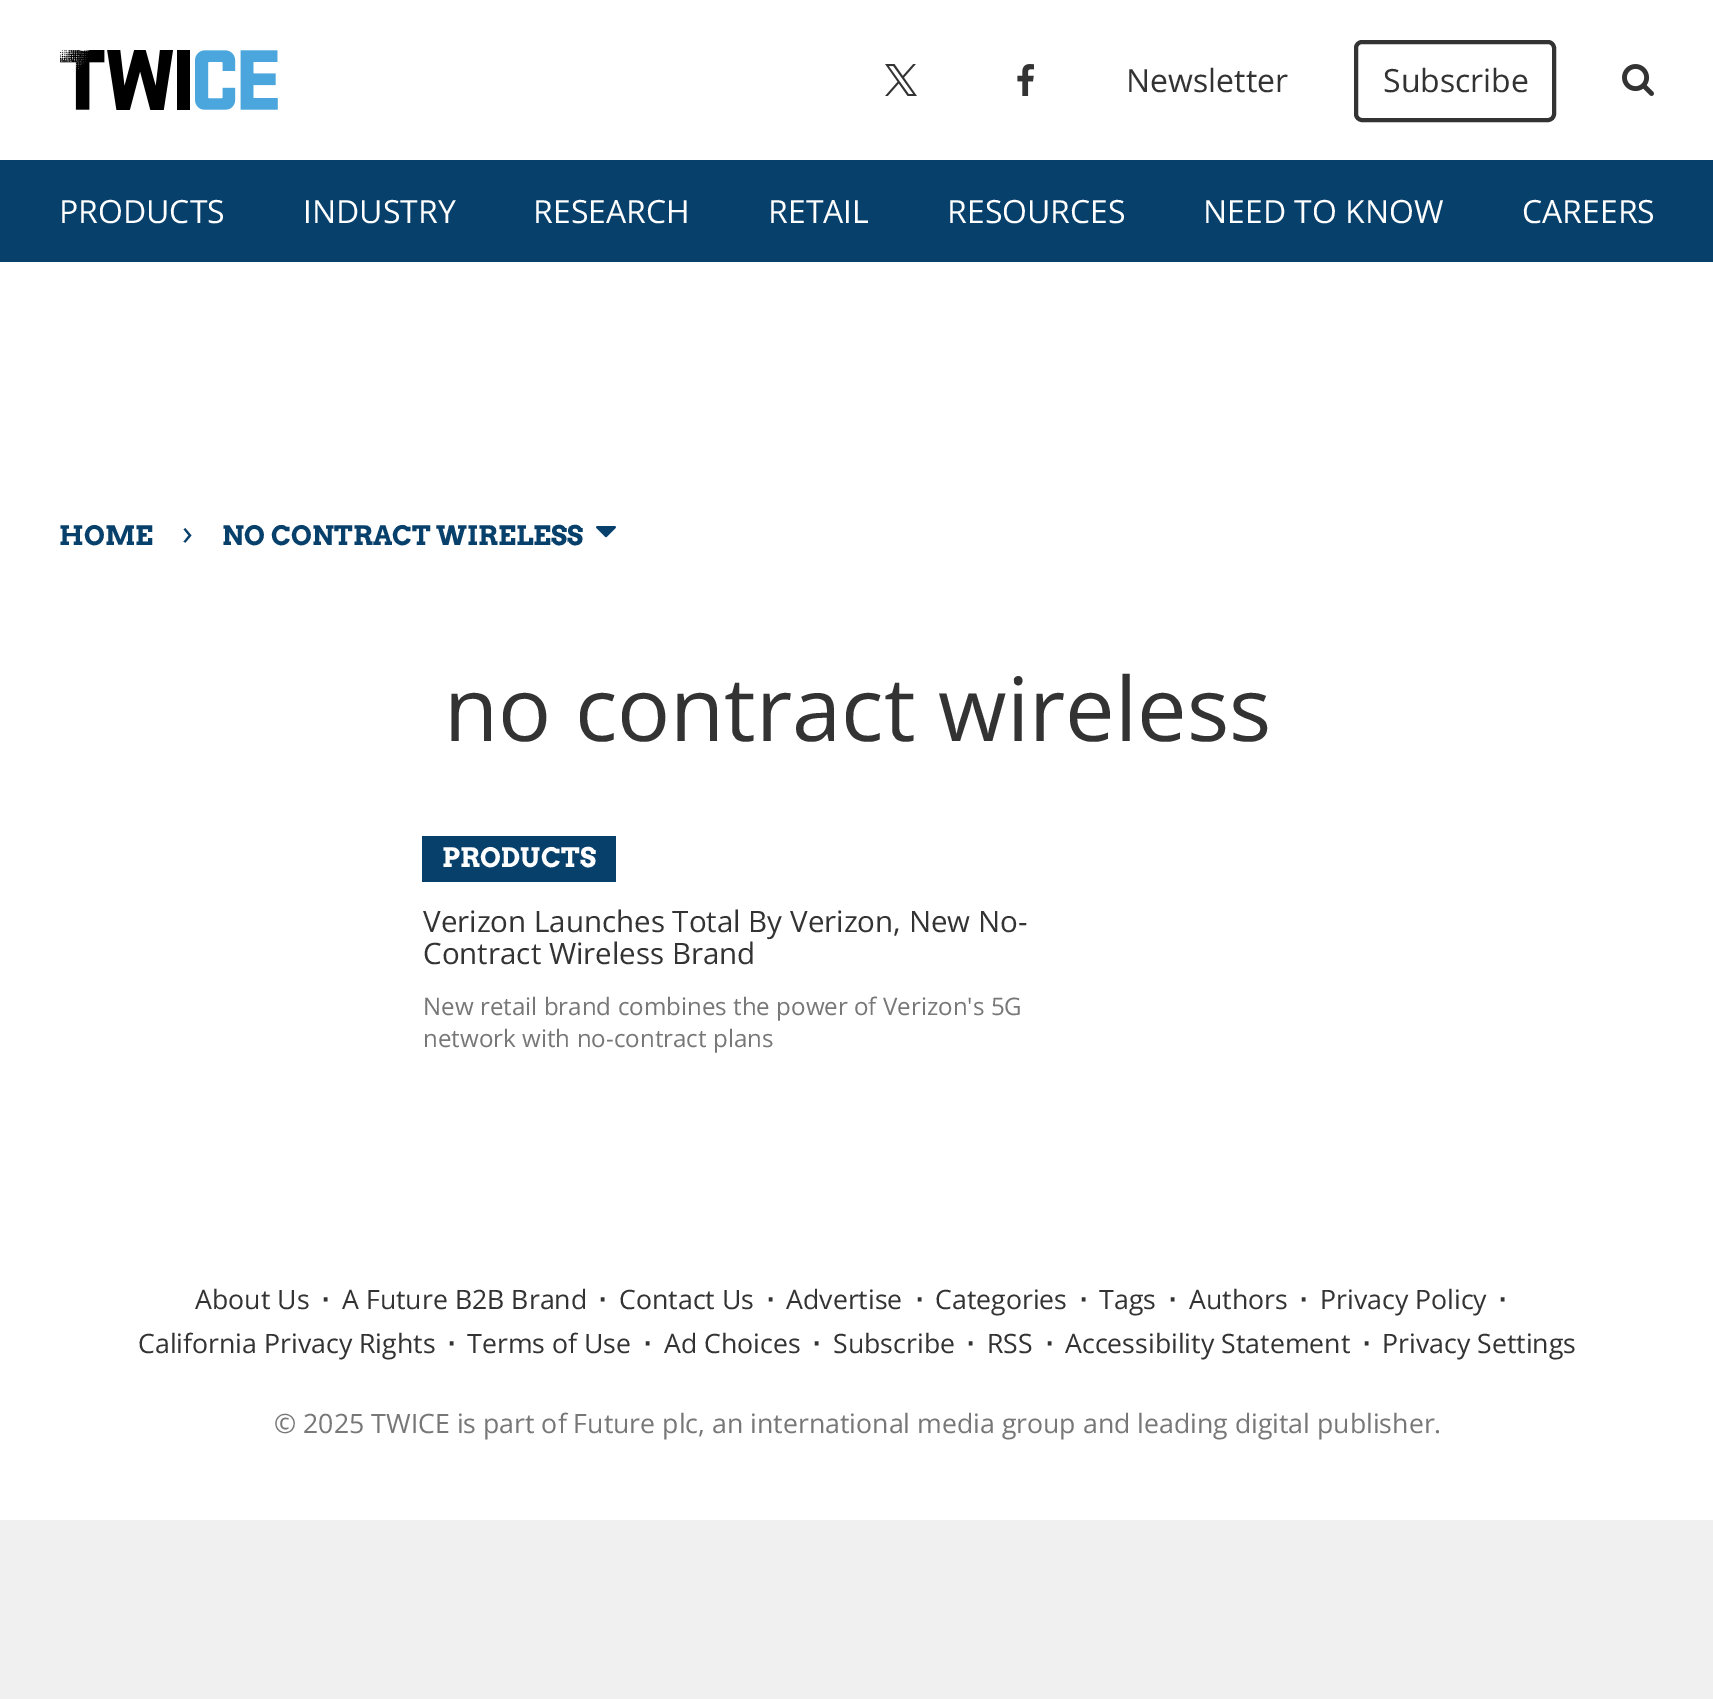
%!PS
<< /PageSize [1713 1699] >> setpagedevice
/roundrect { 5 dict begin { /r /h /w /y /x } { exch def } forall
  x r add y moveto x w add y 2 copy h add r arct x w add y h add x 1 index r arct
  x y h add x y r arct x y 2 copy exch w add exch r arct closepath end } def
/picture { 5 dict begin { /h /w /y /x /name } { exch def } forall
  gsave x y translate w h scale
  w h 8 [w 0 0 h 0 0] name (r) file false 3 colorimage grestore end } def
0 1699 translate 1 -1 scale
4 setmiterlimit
1 setgray
0 0 1713 1699 rectfill
(img1.rgb) 60 50 218 60 picture
(img2.rgb) 885 64 32 32 picture
(img3.rgb) 1017 64 17 32 picture
/OpenSans-Regular [32 0 0 -32 0 0] selectfont
0.2 setgray
1126 92 moveto (Newsletter) show
4 setlinewidth
1356 42 198 78 6 roundrect stroke
1383 92 moveto (Subscribe) show
(img4.rgb) 1622 64 32 32 picture
0.031 0.251 0.424 setrgbcolor
0 160 1713 102 rectfill
1 setgray
59 223 moveto (PRODUCTS) show
303 223 moveto (INDUSTRY) show
533 223 moveto (RESEARCH) show
768 223 moveto (RETAIL) show
947 223 moveto (RESOURCES) show
1203 223 moveto (NEED TO KNOW) show
1522 223 moveto (CAREERS) show
/Arvo-Bold [26.7 0 0 -26.7 0 0] selectfont
0.031 0.251 0.424 setrgbcolor
59 545 moveto (HOME) show
/OpenSans-Regular [36 0 0 -36 0 0] selectfont
182 545 moveto (›) show
/Arvo-Bold [26.7 0 0 -26.7 0 0] selectfont
222 545 moveto (NO CONTRACT WIRELESS) show
(img5.rgb) 596 526 20 12 picture
/OpenSans-Regular [88.5 0 0 -88.5 0 0] selectfont
0.2 setgray
444 741 moveto (no contract wireless) show
0.031 0.251 0.424 setrgbcolor
422 836 194 46 rectfill
/Arvo-Bold [26.7 0 0 -26.7 0 0] selectfont
1 setgray
442 867 moveto (PRODUCTS) show
/OpenSans-Regular [29.5 0 0 -29.5 0 0] selectfont
0.2 setgray
423 932 moveto (Verizon Launches Total By Verizon, New No-) show
423 964 moveto (Contract Wireless Brand) show
/OpenSans-Regular [24.15 0 0 -24.15 0 0] selectfont
0.467 setgray
423 1015 moveto (New retail brand combines the power of Verizon's 5G) show
423 1047 moveto (network with no-contract plans) show
/OpenSans-Regular [26.7 0 0 -26.7 0 0] selectfont
0.2 setgray
195 1309 moveto (About Us) show
/DejaVuSans-Bold [26.7 0 0 -26.7 0 0] selectfont
321 1309 moveto (⋅) show
/OpenSans-Regular [26.7 0 0 -26.7 0 0] selectfont
342 1309 moveto (A Future B2B Brand) show
/DejaVuSans-Bold [26.7 0 0 -26.7 0 0] selectfont
598 1309 moveto (⋅) show
/OpenSans-Regular [26.7 0 0 -26.7 0 0] selectfont
619 1309 moveto (Contact Us) show
/DejaVuSans-Bold [26.7 0 0 -26.7 0 0] selectfont
766 1309 moveto (⋅) show
/OpenSans-Regular [26.7 0 0 -26.7 0 0] selectfont
786 1309 moveto (Advertise) show
/DejaVuSans-Bold [26.7 0 0 -26.7 0 0] selectfont
915 1309 moveto (⋅) show
/OpenSans-Regular [26.7 0 0 -26.7 0 0] selectfont
935 1309 moveto (Categories) show
/DejaVuSans-Bold [26.7 0 0 -26.7 0 0] selectfont
1079 1309 moveto (⋅) show
/OpenSans-Regular [26.7 0 0 -26.7 0 0] selectfont
1099 1309 moveto (Tags) show
/DejaVuSans-Bold [26.7 0 0 -26.7 0 0] selectfont
1168 1309 moveto (⋅) show
/OpenSans-Regular [26.7 0 0 -26.7 0 0] selectfont
1189 1309 moveto (Authors) show
/DejaVuSans-Bold [26.7 0 0 -26.7 0 0] selectfont
1299 1309 moveto (⋅) show
/OpenSans-Regular [26.7 0 0 -26.7 0 0] selectfont
1320 1309 moveto (Privacy Policy) show
/DejaVuSans-Bold [26.7 0 0 -26.7 0 0] selectfont
1498 1309 moveto (⋅) show
/OpenSans-Regular [26.7 0 0 -26.7 0 0] selectfont
138 1353 moveto (California Privacy Rights) show
/DejaVuSans-Bold [26.7 0 0 -26.7 0 0] selectfont
447 1353 moveto (⋅) show
/OpenSans-Regular [26.7 0 0 -26.7 0 0] selectfont
467 1353 moveto (Terms of Use) show
/DejaVuSans-Bold [26.7 0 0 -26.7 0 0] selectfont
643 1353 moveto (⋅) show
/OpenSans-Regular [26.7 0 0 -26.7 0 0] selectfont
664 1353 moveto (Ad Choices) show
/DejaVuSans-Bold [26.7 0 0 -26.7 0 0] selectfont
812 1353 moveto (⋅) show
/OpenSans-Regular [26.7 0 0 -26.7 0 0] selectfont
833 1353 moveto (Subscribe) show
/DejaVuSans-Bold [26.7 0 0 -26.7 0 0] selectfont
966 1353 moveto (⋅) show
/OpenSans-Regular [26.7 0 0 -26.7 0 0] selectfont
987 1353 moveto (RSS) show
/DejaVuSans-Bold [26.7 0 0 -26.7 0 0] selectfont
1045 1353 moveto (⋅) show
/OpenSans-Regular [26.7 0 0 -26.7 0 0] selectfont
1065 1353 moveto (Accessibility Statement) show
/DejaVuSans-Bold [26.7 0 0 -26.7 0 0] selectfont
1362 1353 moveto (⋅) show
/OpenSans-Regular [26.7 0 0 -26.7 0 0] selectfont
1382 1353 moveto (Privacy Settings) show
0.467 setgray
274 1433 moveto (© 2025 TWICE is part of Future plc, an international media group and leading digital publisher.) show
0.941 setgray
0 1520 1713 179 rectfill
showpage
